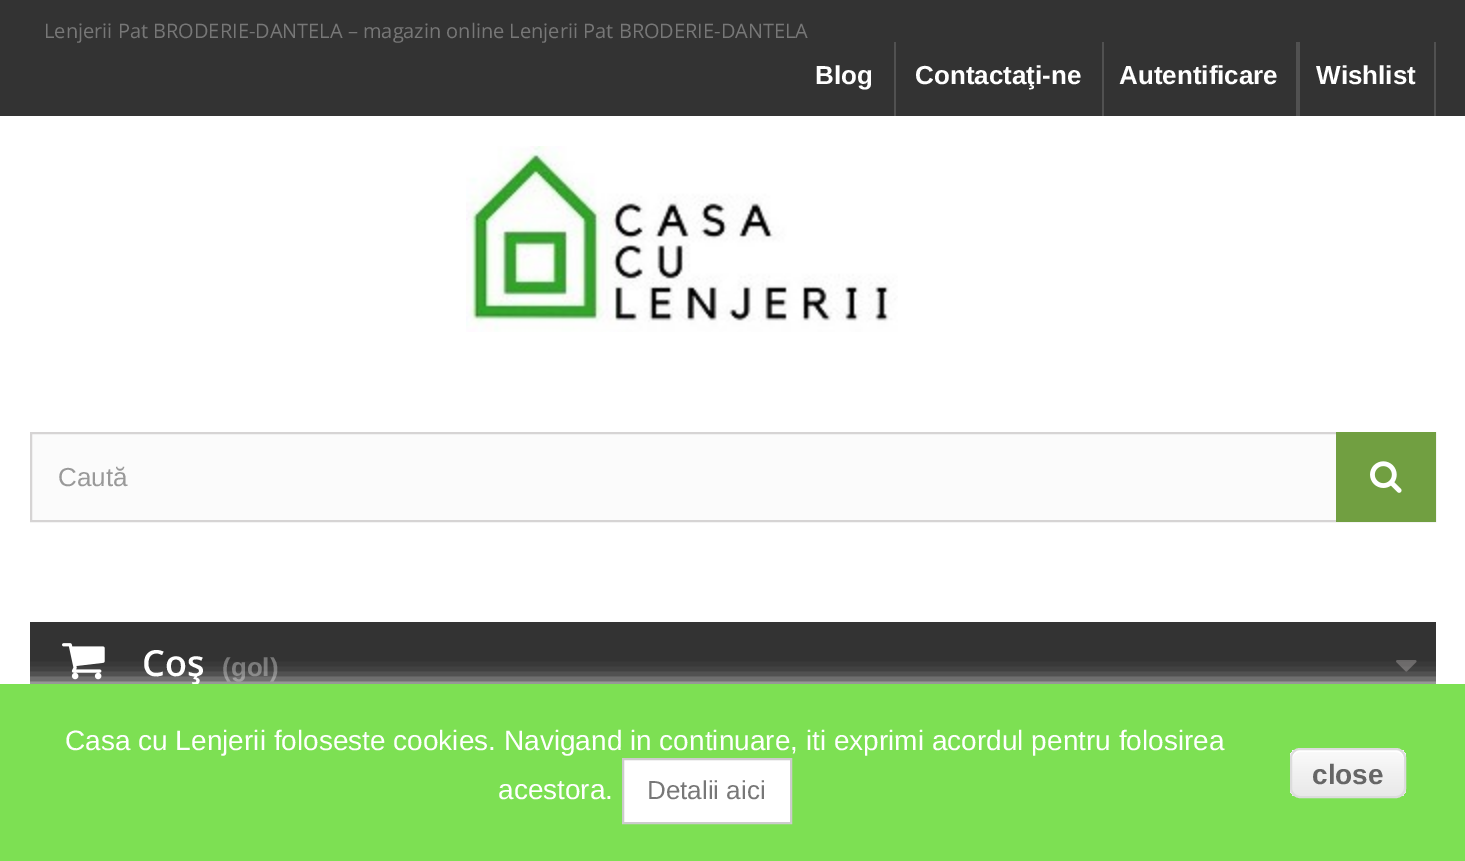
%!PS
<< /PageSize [1465 861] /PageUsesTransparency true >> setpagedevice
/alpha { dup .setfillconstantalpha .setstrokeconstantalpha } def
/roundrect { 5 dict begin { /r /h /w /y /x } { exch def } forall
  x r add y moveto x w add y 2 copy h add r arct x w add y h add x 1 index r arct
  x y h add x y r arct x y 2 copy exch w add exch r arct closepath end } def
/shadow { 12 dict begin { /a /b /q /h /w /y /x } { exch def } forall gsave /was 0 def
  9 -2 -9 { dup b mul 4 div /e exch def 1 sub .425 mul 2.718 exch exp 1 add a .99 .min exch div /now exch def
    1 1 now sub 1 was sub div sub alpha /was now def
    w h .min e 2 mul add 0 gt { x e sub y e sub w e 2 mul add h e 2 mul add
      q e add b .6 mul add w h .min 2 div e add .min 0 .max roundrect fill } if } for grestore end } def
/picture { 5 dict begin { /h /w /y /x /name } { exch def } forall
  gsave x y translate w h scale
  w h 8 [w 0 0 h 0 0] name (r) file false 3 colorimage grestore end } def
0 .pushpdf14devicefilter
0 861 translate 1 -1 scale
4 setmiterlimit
1 setgray
0 0 1465 861 rectfill
0.2 setgray
0 0 1465 116 rectfill
/OpenSans-Regular [20 0 0 -20 0 0] selectfont
0.467 setgray
44 38 moveto (Lenjerii Pat BRODERIE-DANTELA – magazin online Lenjerii Pat BRODERIE-DANTELA) show
/LiberationSans-Bold [26 0 0 -26 0 0] selectfont
1 setgray
815 84 moveto (Blog) show
0.318 setgray
894 42 2 74 rectfill
1 setgray
915 84 moveto (Contactaţi-ne) show
0.318 setgray
1102 42 2 74 rectfill
1 setgray
1119 84 moveto (Autentificare) show
0.318 setgray
1434 42 2 74 rectfill
1296 42 4 74 rectfill
1 setgray
1316 84 moveto (Wishlist) show
(img1.rgb) 466 146 432 186 picture
0.984 setgray
32 434 1304 86 rectfill
0.839 0.831 0.831 setrgbcolor
2 setlinewidth
31 433 1404 88 rectstroke
/LiberationSans-Regular [26 0 0 -26 0 0] selectfont
0.6 setgray
58 486 moveto (Caută) show
0.443 0.624 0.255 setrgbcolor
1336 432 100 90 rectfill
(img2.rgb) 1370 461 32 32 picture
0.2 setgray
30 622 1406 62 rectfill
(img3.rgb) 62 643 43 37 picture
/OpenSans-SemiBold [36 0 0 -36 0 0] selectfont
1 setgray
142 676 moveto (Coş) show
/LiberationSans-Bold [26 0 0 -26 0 0] selectfont
0.467 setgray
222 676 moveto (\(gol\)) show
(img4.rgb) 1396 660 21 12 picture
1 setgray
0 684 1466 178 0 10 1 shadow
0.49 0.878 0.325 setrgbcolor
0 684 1465 177 rectfill
/LiberationSans-Regular [28 0 0 -28 0 0] selectfont
1 setgray
65 750 moveto (Casa cu Lenjerii foloseste cookies. Navigand in continuare, iti exprimi acordul pentru folosirea) show
498 799 moveto (acestora.) show
newpath 623 759 moveto 791 759 lineto 791 823 lineto 623 823 lineto closepath gsave fill grestore
0.8 setgray
stroke
/LiberationSans-Regular [26 0 0 -26 0 0] selectfont
0.467 setgray
647 799 moveto (Detalii aici) show
gsave
1290 748 116 50 10 roundrect clip newpath
gsave newpath 1290 750 moveto 1406 750 lineto 1406 796 lineto 1290 796 lineto closepath clip newpath
<< /ShadingType 2 /ColorSpace /DeviceRGB /Coords [1292 750 1292 796] /Extend [true true] /Function << /FunctionType 3 /Domain [0 1] /Functions [<< /FunctionType 2 /Domain [0 1] /C0 [0.976 0.976 0.976] /C1 [0.976 0.976 0.976] /N 1 >> << /FunctionType 2 /Domain [0 1] /C0 [0.976 0.976 0.976] /C1 [0.914 0.914 0.914] /N 1 >>] /Bounds [0.05] /Encode [0 1 0 1] >> >> shfill grestore
grestore
1 setgray
newpath 1300 752 moveto 1396 752 lineto 1400 752 1404 756 1404 760 curveto 1404 746 1390 750 1380 750 curveto 1316 750 lineto 1306 750 1292 746 1292 760 curveto 1292 756 1296 752 1300 752 curveto closepath fill
0.863 setgray
1291 749 114 48 9 roundrect stroke
/LiberationSans-Bold [28 0 0 -28 0 0] selectfont
0.4 setgray
1312 784 moveto (close) show
.poppdf14devicefilter showpage
